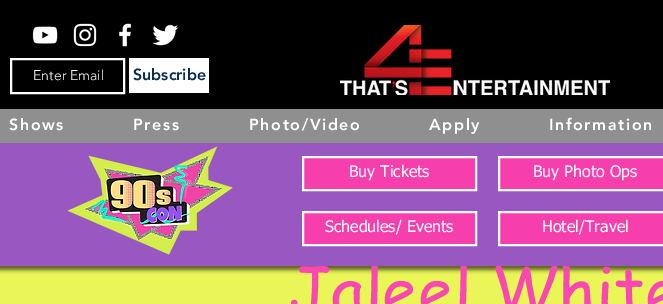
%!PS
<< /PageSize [663 304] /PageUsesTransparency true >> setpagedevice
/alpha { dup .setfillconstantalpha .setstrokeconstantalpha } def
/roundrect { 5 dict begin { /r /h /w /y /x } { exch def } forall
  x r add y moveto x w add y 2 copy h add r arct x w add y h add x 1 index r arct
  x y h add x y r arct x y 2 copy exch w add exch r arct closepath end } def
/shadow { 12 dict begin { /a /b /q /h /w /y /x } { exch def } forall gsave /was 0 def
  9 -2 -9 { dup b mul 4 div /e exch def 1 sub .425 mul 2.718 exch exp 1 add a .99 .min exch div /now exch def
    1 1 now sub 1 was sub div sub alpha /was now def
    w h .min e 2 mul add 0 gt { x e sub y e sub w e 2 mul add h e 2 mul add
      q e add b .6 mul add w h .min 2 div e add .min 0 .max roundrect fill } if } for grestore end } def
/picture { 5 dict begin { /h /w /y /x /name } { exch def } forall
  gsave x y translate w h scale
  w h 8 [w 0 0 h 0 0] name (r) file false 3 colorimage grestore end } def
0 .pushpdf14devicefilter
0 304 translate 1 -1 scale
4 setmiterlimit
1 setgray
0 0 663 304 rectfill
0 setgray
0 0 663 109 rectfill
(img1.rgb) 32 26 26 18 picture
(img2.rgb) 73 23 24 24 picture
(img3.rgb) 119 23 13 24 picture
(img4.rgb) 152 24 27 22 picture
(img5.rgb) 340 25 270 70 picture
1 setgray
2 setlinewidth
11 59 113 34 rectstroke
/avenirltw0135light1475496-Light [14 0 0 -14 0 0] selectfont
33 80 moveto (Enter Email) show
129 58 80 35 rectfill
/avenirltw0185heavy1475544-Black [16 0 0 -16 0 0] selectfont
0.031 0.18 0.314 setrgbcolor
133 80 moveto (Subscribe) show
0.918 0.961 0.345 setrgbcolor
0 266 25 38 rectfill
(img7.rgb) 25 266 638 38 picture
0 setgray
-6 138 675 132 0 2 0.6 shadow
0.561 setgray
0 109 663 34 rectfill
1 setgray
9 130 moveto 1.6 0 (Shows) ashow
133 130 moveto 1.6 0 (Press) ashow
249 130 moveto 1.6 0 (Photo/Video) ashow
429 130 moveto 1.6 0 (Apply) ashow
549 130 moveto 1.6 0 (Information) ashow
/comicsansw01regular-Regular [65 0 0 -65 0 0] selectfont
0.98 0.282 0.702 setrgbcolor
288 314 moveto (Jaleel White) show
0.6 0.341 0.761 setrgbcolor
0 143 663 123 rectfill
(img6.rgb) 67 146 166 109 picture
0.969 0.243 0.678 setrgbcolor
newpath 303 157 moveto 476 157 lineto 476 190 lineto 303 190 lineto closepath gsave fill grestore
1 setgray
stroke
/tahoma-Regular [16 0 0 -16 0 0] selectfont
349 177 moveto (Buy Tickets) show
0.969 0.243 0.678 setrgbcolor
newpath 499 157 moveto 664 157 lineto 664 190 lineto 499 190 lineto closepath gsave fill grestore
1 setgray
stroke
533 177 moveto (Buy Photo Ops) show
0.969 0.243 0.678 setrgbcolor
newpath 303 212 moveto 476 212 lineto 476 245 lineto 303 245 lineto closepath gsave fill grestore
1 setgray
stroke
325 232 moveto (Schedules/ Events) show
0.969 0.243 0.678 setrgbcolor
newpath 499 212 moveto 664 212 lineto 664 245 lineto 499 245 lineto closepath gsave fill grestore
1 setgray
stroke
542 232 moveto (Hotel/Travel) show
.poppdf14devicefilter showpage
